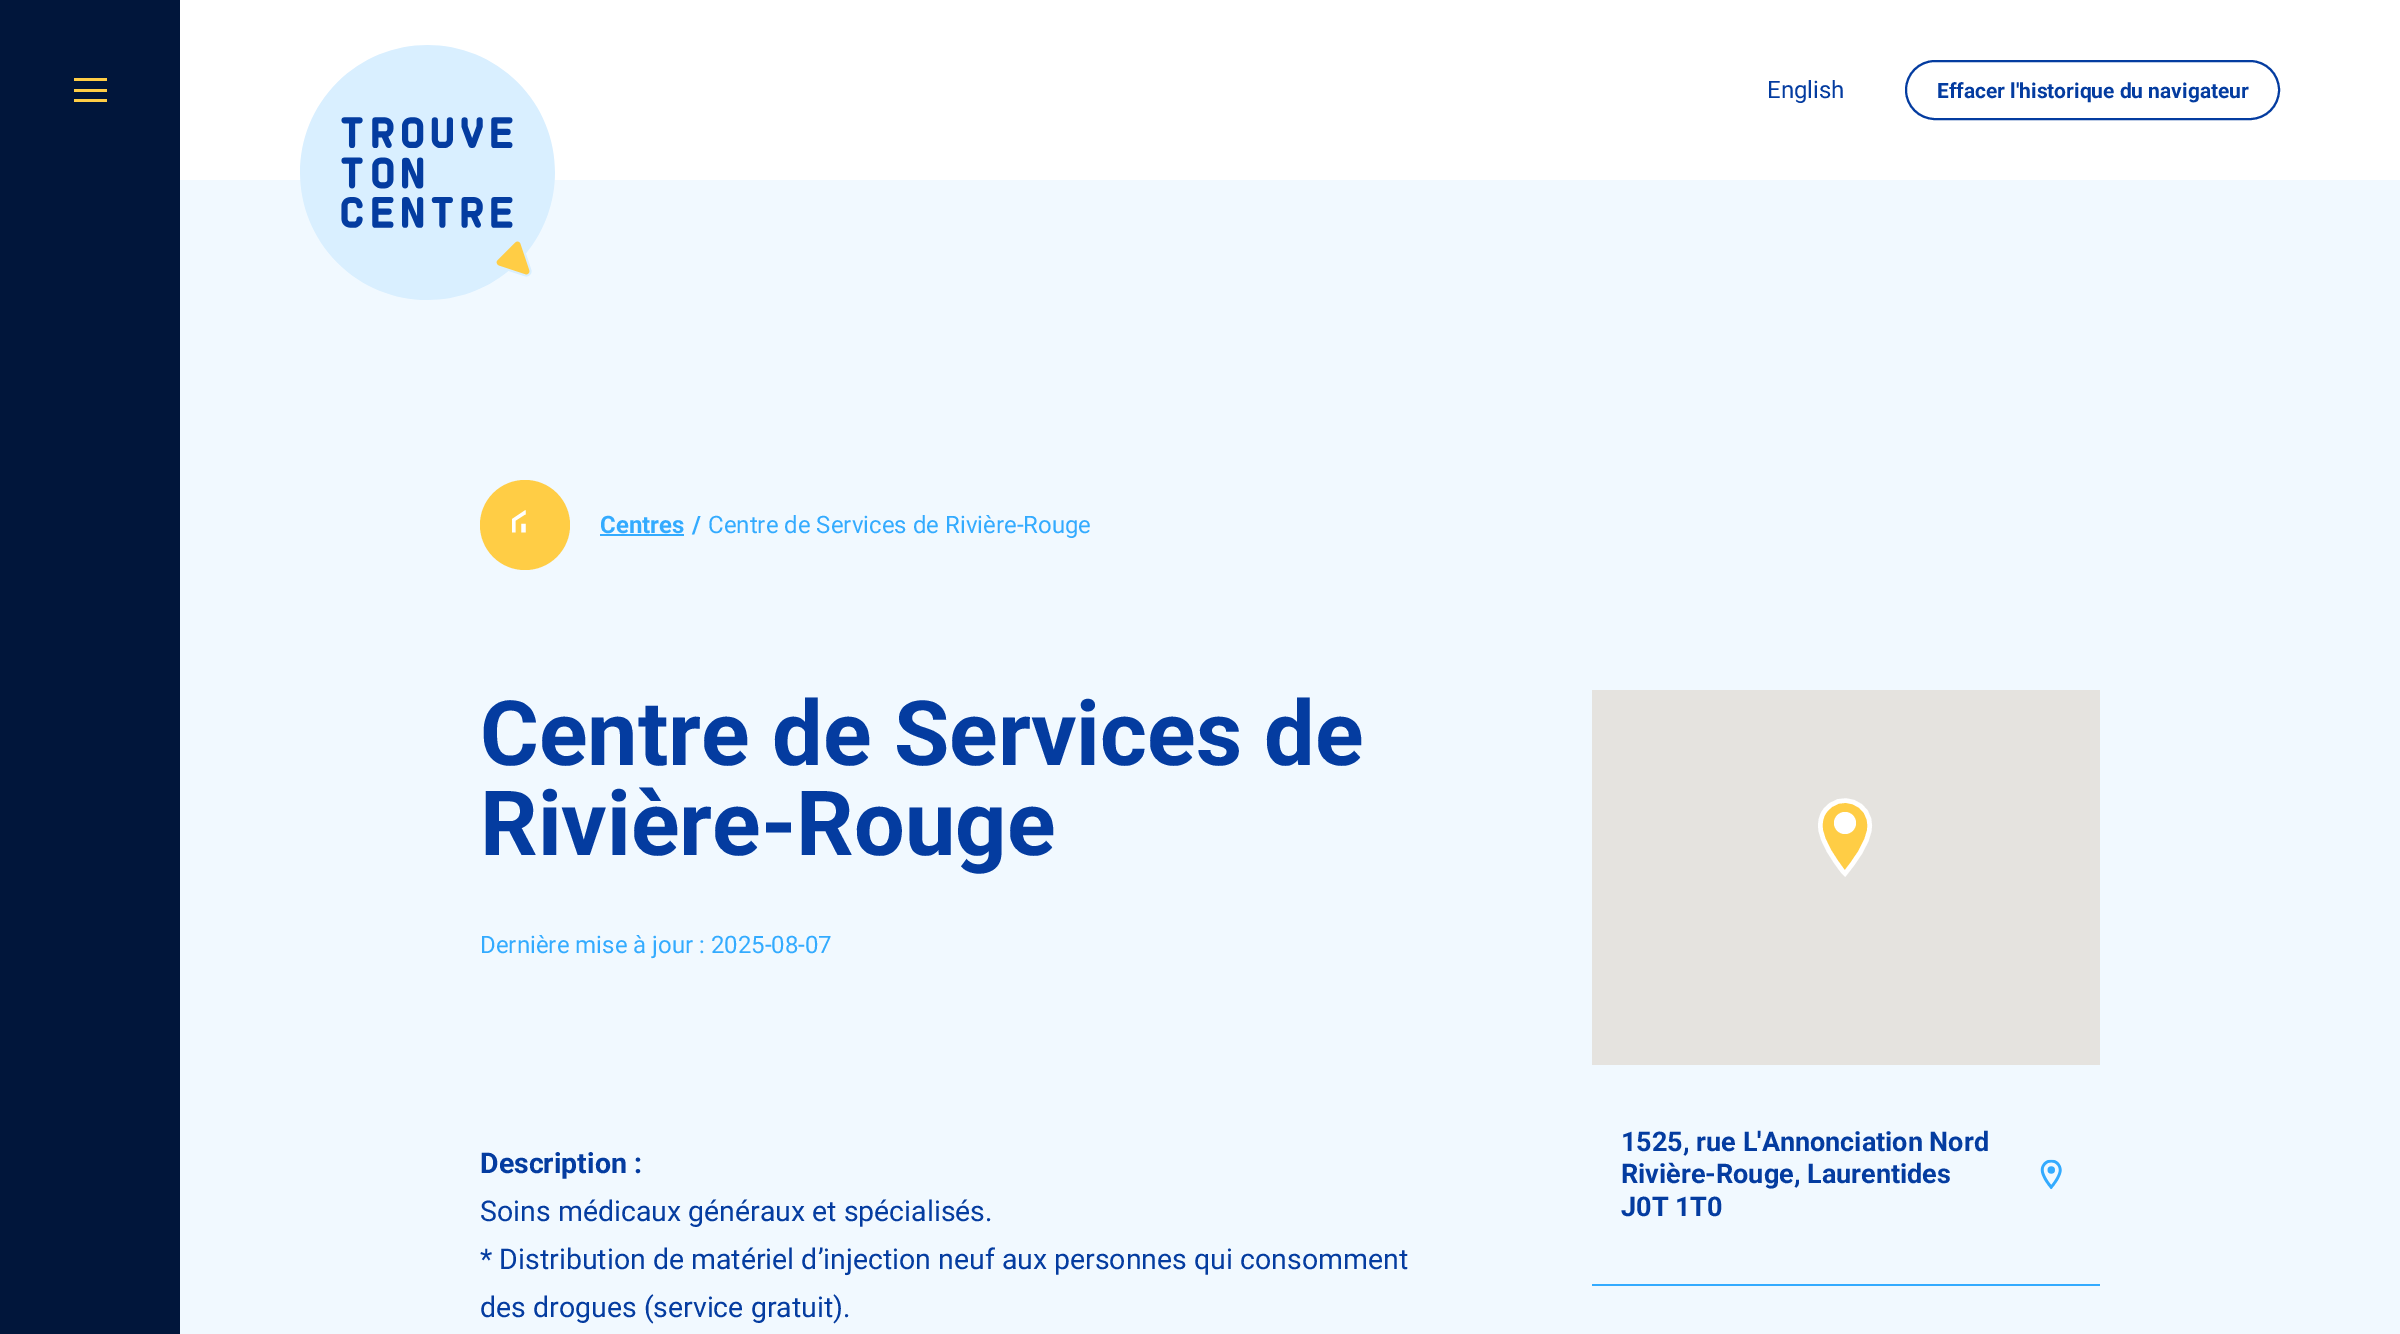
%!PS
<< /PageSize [2400 1334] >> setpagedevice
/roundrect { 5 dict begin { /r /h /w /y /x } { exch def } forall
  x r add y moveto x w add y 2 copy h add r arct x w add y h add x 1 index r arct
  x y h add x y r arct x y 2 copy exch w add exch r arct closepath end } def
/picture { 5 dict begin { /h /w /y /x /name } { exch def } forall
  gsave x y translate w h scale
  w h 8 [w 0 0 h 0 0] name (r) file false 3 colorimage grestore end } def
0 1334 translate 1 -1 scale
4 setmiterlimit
0.945 0.976 1 setrgbcolor
0 0 2400 1334 rectfill
0.004 0.086 0.231 setrgbcolor
0 0 180 1334 rectfill
1 0.804 0.271 setrgbcolor
74 78 33 3 rectfill
74 89 33 3 rectfill
74 99 33 3 rectfill
1 setgray
180 0 2220 180 rectfill
(img1.rgb) 300 45 255 255 picture
/Roboto-Regular [24 0 0 -24 0 0] selectfont
0.016 0.235 0.627 setrgbcolor
1767 98 moveto (English) show
2 setlinewidth
1906 61 373 58 29 roundrect stroke
/Roboto-Bold [21 0 0 -21 0 0] selectfont
1937 98 moveto (Effacer l'historique du navigateur) show
1 0.804 0.271 setrgbcolor
newpath 525 525 45 0 360 arc closepath fill
(img2.rgb) 512 510 14 23 picture
/Roboto-Bold [24 0 0 -24 0 0] selectfont
0.2 0.671 1 setrgbcolor
600 533 moveto (Centres) show
600 534 84 2 rectfill
692 533 moveto (/) show
/Roboto-Regular [24 0 0 -24 0 0] selectfont
708 533 moveto (Centre de Services de Rivière-Rouge) show
/Roboto-Bold [90 0 0 -90 0 0] selectfont
0.016 0.235 0.627 setrgbcolor
480 765 moveto (Centre de Services de) show
480 855 moveto (Rivière-Rouge) show
/Roboto-Regular [24 0 0 -24 0 0] selectfont
0.2 0.671 1 setrgbcolor
480 953 moveto (Dernière mise à jour : 2025-08-07) show
/Roboto-Bold [28.5 0 0 -28.5 0 0] selectfont
0.016 0.235 0.627 setrgbcolor
480 1173 moveto (Description :) show
/Roboto-Regular [28.5 0 0 -28.5 0 0] selectfont
480 1221 moveto (Soins médicaux généraux et spécialisés.) show
480 1269 moveto (* Distribution de matériel d’injection neuf aux personnes qui consomment) show
480 1317 moveto (des drogues \(service gratuit\).) show
0.898 0.89 0.875 setrgbcolor
1592 690 508 375 rectfill
1 0.804 0.271 setrgbcolor
newpath 1843 871 moveto 1845 874 lineto 1855 861 1868 844 1870 828 curveto 1872 802 1839 790 1824 811 curveto 1821 816 1820 822 1820 828 curveto 1822 843 1834 860 1843 871 curveto closepath fill
1 setgray
4.5 setlinewidth
newpath 1843 871.5 moveto 1845 873.5 lineto 1855 861 1868 844 1869.5 828 curveto 1872.5 802.5 1839 790 1824.5 811.5 curveto 1821 816 1820 822 1820.5 828 curveto 1822 843 1834 859.5 1843 871.5 curveto closepath stroke
newpath 1845 823 11 0 360 arc closepath fill
/Roboto-Bold [27 0 0 -27 0 0] selectfont
0.016 0.235 0.627 setrgbcolor
1621 1151 moveto (1525, rue L'Annonciation Nord) show
1621 1183 moveto (Rivière-Rouge, Laurentides) show
1621 1216 moveto (J0T 1T0) show
(img3.rgb) 2040 1159 22 31 picture
0.2 0.671 1 setrgbcolor
1592 1284 508 2 rectfill
showpage
